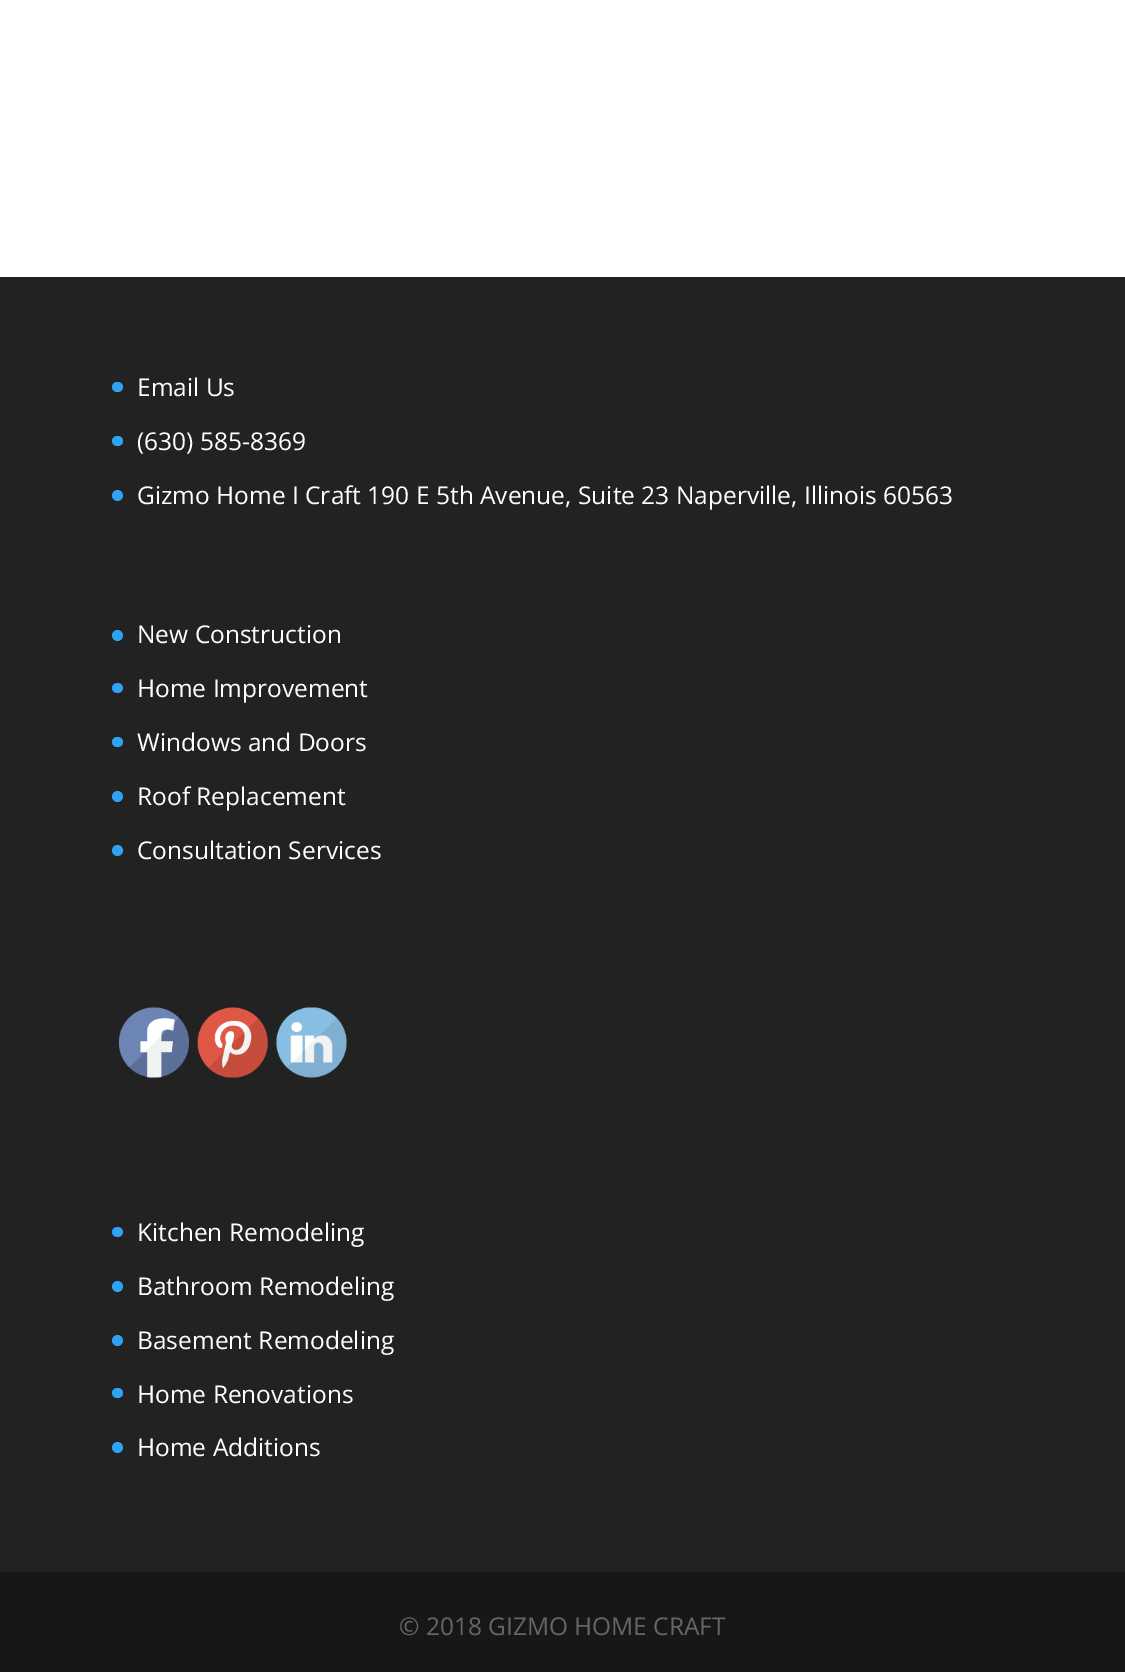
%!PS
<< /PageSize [1125 1672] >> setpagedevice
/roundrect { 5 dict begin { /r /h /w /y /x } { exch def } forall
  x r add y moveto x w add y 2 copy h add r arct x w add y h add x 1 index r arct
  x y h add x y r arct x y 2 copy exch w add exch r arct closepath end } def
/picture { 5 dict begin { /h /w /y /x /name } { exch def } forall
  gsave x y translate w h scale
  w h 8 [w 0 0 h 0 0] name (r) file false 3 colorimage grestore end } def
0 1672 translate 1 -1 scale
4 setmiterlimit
1 setgray
0 0 1125 1672 rectfill
0.133 setgray
0 277 1125 1295 rectfill
0.18 0.639 0.949 setrgbcolor
112 382 11 10 5 roundrect fill
/OpenSans-Regular [24.5 0 0 -24.5 0 0] selectfont
1 setgray
137 396 moveto (Email Us) show
0.18 0.639 0.949 setrgbcolor
112 436 11 10 5 roundrect fill
1 setgray
137 450 moveto (\(630\) 585-8369) show
0.18 0.639 0.949 setrgbcolor
newpath 117.5 495.5 5.5 0 360 arc closepath fill
1 setgray
137 504 moveto (Gizmo Home I Craft 190 E 5th Avenue, Suite 23 Naperville, Illinois 60563) show
0.18 0.639 0.949 setrgbcolor
newpath 117.5 635.5 5.5 0 360 arc closepath fill
1 setgray
137 643 moveto (New Construction) show
0.18 0.639 0.949 setrgbcolor
112 683 11 10 5 roundrect fill
1 setgray
137 697 moveto (Home Improvement) show
0.18 0.639 0.949 setrgbcolor
112 737 11 10 5 roundrect fill
1 setgray
137 751 moveto (Windows and Doors) show
0.18 0.639 0.949 setrgbcolor
newpath 117.5 796.5 5.5 0 360 arc closepath fill
1 setgray
137 805 moveto (Roof Replacement) show
0.18 0.639 0.949 setrgbcolor
newpath 117.5 850.5 5.5 0 360 arc closepath fill
1 setgray
137 859 moveto (Consultation Services) show
(img1.rgb) 119 1007 70 71 picture
(img2.rgb) 197 1007 71 71 picture
(img3.rgb) 276 1007 71 71 picture
0.18 0.639 0.949 setrgbcolor
112 1227 11 10 5 roundrect fill
1 setgray
137 1241 moveto (Kitchen Remodeling) show
0.18 0.639 0.949 setrgbcolor
newpath 117.5 1286.5 5.5 0 360 arc closepath fill
1 setgray
137 1295 moveto (Bathroom Remodeling) show
0.18 0.639 0.949 setrgbcolor
newpath 117.5 1340.5 5.5 0 360 arc closepath fill
1 setgray
137 1349 moveto (Basement Remodeling) show
0.18 0.639 0.949 setrgbcolor
112 1388 11 10 5 roundrect fill
1 setgray
137 1403 moveto (Home Renovations) show
0.18 0.639 0.949 setrgbcolor
newpath 117.5 1447.5 5.5 0 360 arc closepath fill
1 setgray
137 1456 moveto (Home Additions) show
0.09 setgray
0 1572 1125 100 rectfill
0.4 setgray
399 1635 moveto (© 2018 GIZMO HOME CRAFT) show
showpage
